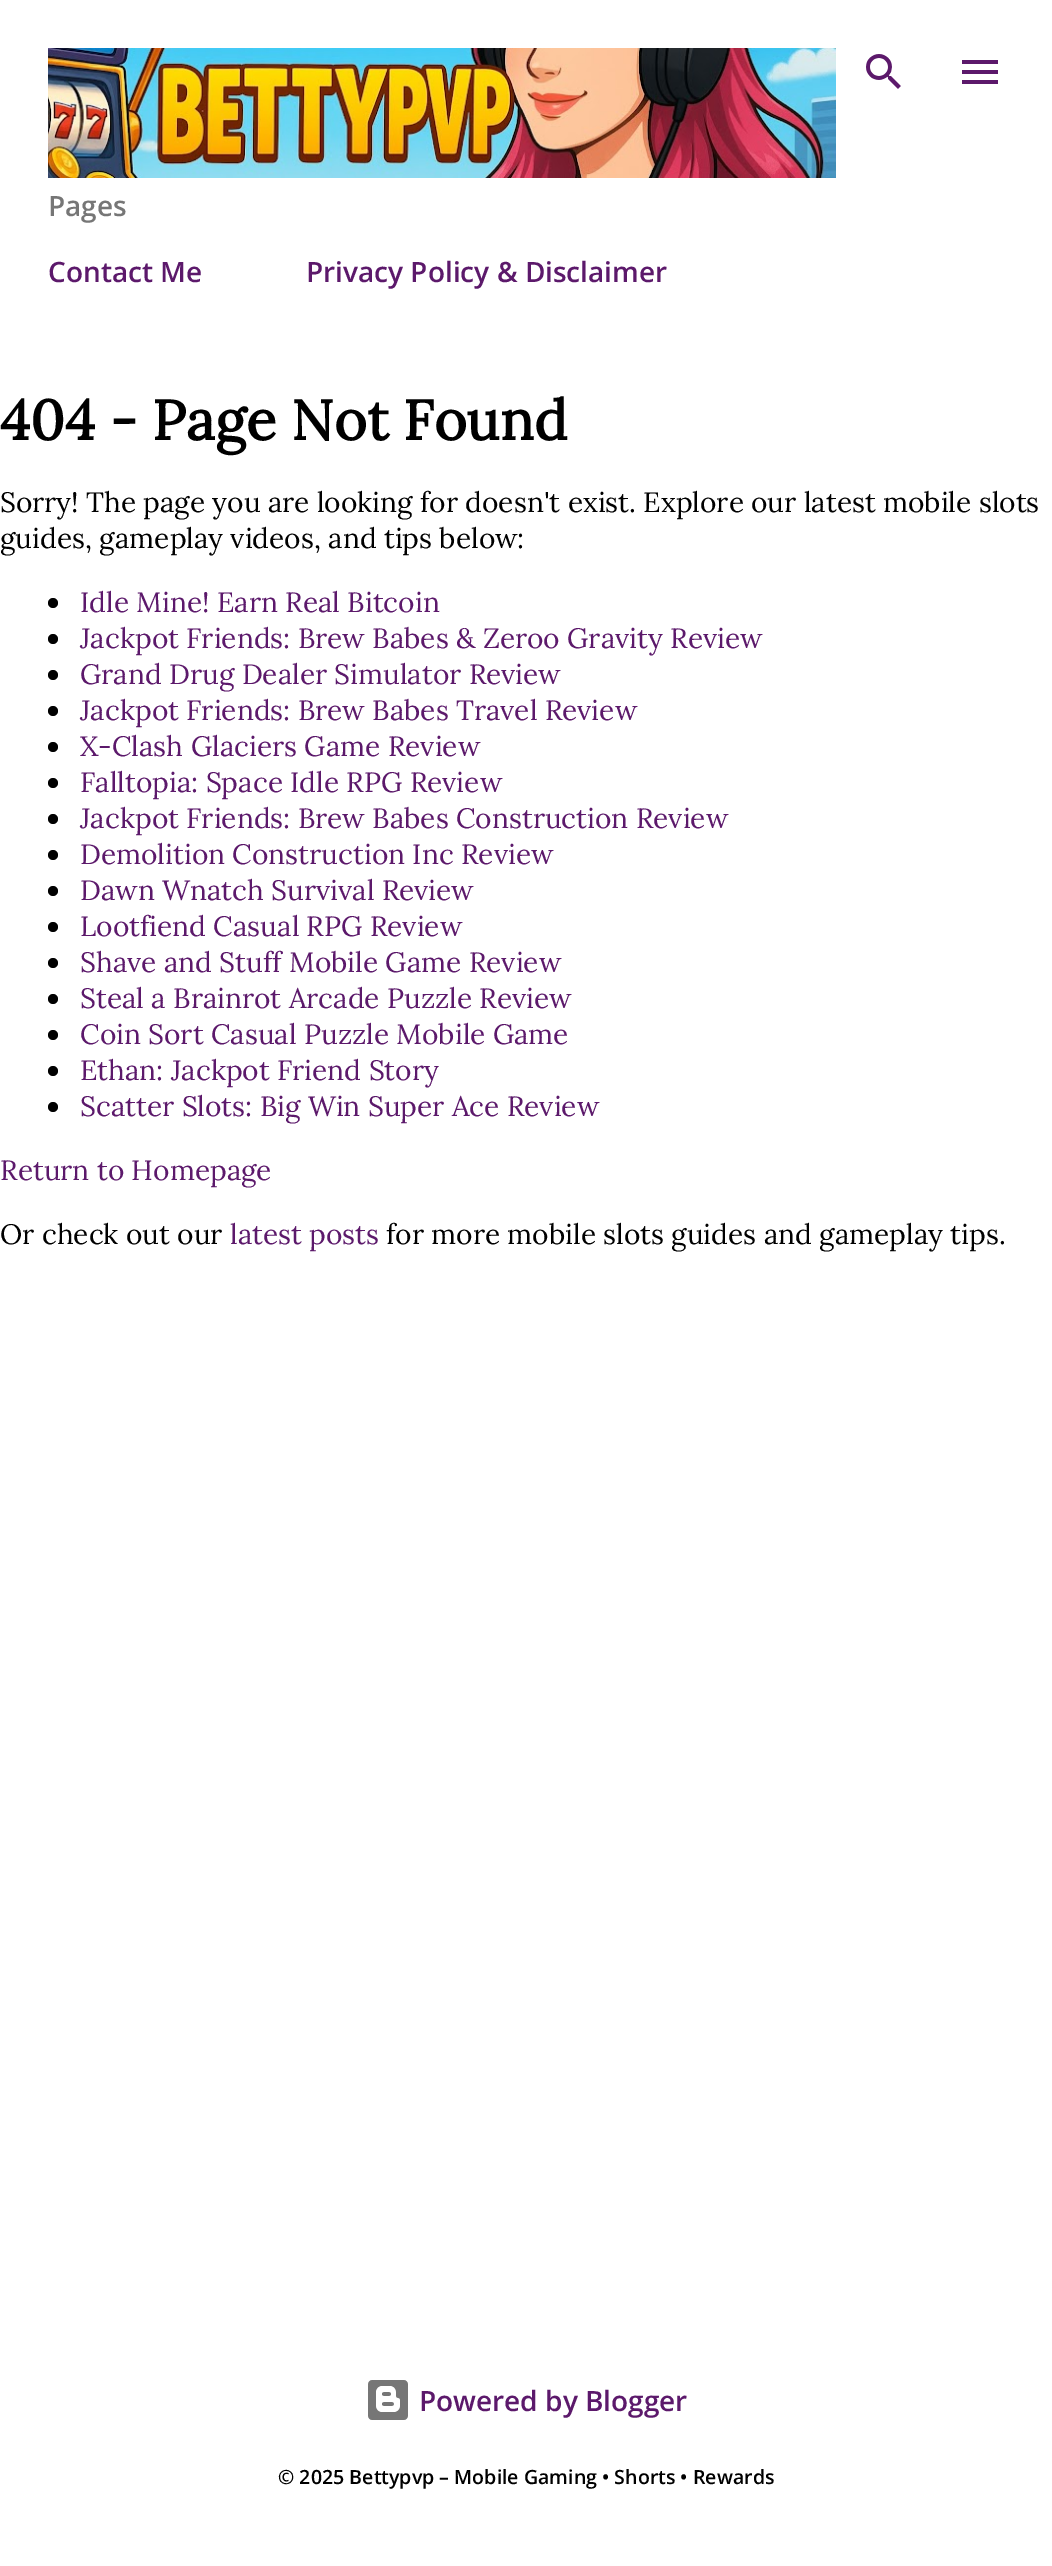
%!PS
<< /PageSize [1052 2566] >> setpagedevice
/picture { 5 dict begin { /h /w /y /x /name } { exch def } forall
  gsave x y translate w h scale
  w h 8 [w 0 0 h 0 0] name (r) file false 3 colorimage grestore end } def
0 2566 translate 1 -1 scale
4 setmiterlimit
1 setgray
0 0 1052 2566 rectfill
(img1.rgb) 48 48 788 130 picture
(img2.rgb) 866 54 35 35 picture
(img3.rgb) 962 60 36 24 picture
/OpenSans-SemiBold [28 0 0 -28 0 0] selectfont
0.463 setgray
48 216 moveto (Pages) show
0.361 0.098 0.42 setrgbcolor
48 282 moveto (Contact Me) show
306 282 moveto (Privacy Policy & Disclaimer) show
/Lora-Bold [56 0 0 -56 0 0] selectfont
0 setgray
0 440 moveto (404 - Page Not Found) show
/Lora-Regular [28 0 0 -28 0 0] selectfont
0 512 moveto (Sorry! The page you are looking for doesn't exist. Explore our latest mobile slots) show
0 548 moveto (guides, gameplay videos, and tips below:) show
newpath 53 603 5 0 360 arc closepath fill
0.361 0.098 0.42 setrgbcolor
80 612 moveto (Idle Mine! Earn Real Bitcoin) show
0 setgray
newpath 53 639 5 0 360 arc closepath fill
0.361 0.098 0.42 setrgbcolor
80 648 moveto (Jackpot Friends: Brew Babes & Zeroo Gravity Review) show
0 setgray
newpath 53 675 5 0 360 arc closepath fill
0.361 0.098 0.42 setrgbcolor
80 684 moveto (Grand Drug Dealer Simulator Review) show
0 setgray
newpath 53 711 5 0 360 arc closepath fill
0.361 0.098 0.42 setrgbcolor
80 720 moveto (Jackpot Friends: Brew Babes Travel Review) show
0 setgray
newpath 53 747 5 0 360 arc closepath fill
0.361 0.098 0.42 setrgbcolor
80 756 moveto (X-Clash Glaciers Game Review) show
0 setgray
newpath 53 783 5 0 360 arc closepath fill
0.361 0.098 0.42 setrgbcolor
80 792 moveto (Falltopia: Space Idle RPG Review) show
0 setgray
newpath 53 819 5 0 360 arc closepath fill
0.361 0.098 0.42 setrgbcolor
80 828 moveto (Jackpot Friends: Brew Babes Construction Review) show
0 setgray
newpath 53 855 5 0 360 arc closepath fill
0.361 0.098 0.42 setrgbcolor
80 864 moveto (Demolition Construction Inc Review) show
0 setgray
newpath 53 891 5 0 360 arc closepath fill
0.361 0.098 0.42 setrgbcolor
80 900 moveto (Dawn Wnatch Survival Review) show
0 setgray
newpath 53 927 5 0 360 arc closepath fill
0.361 0.098 0.42 setrgbcolor
80 936 moveto (Lootfiend Casual RPG Review) show
0 setgray
newpath 53 963 5 0 360 arc closepath fill
0.361 0.098 0.42 setrgbcolor
80 972 moveto (Shave and Stuff Mobile Game Review) show
0 setgray
newpath 53 999 5 0 360 arc closepath fill
0.361 0.098 0.42 setrgbcolor
80 1008 moveto (Steal a Brainrot Arcade Puzzle Review) show
0 setgray
newpath 53 1035 5 0 360 arc closepath fill
0.361 0.098 0.42 setrgbcolor
80 1044 moveto (Coin Sort Casual Puzzle Mobile Game) show
0 setgray
newpath 53 1071 5 0 360 arc closepath fill
0.361 0.098 0.42 setrgbcolor
80 1080 moveto (Ethan: Jackpot Friend Story) show
0 setgray
newpath 53 1107 5 0 360 arc closepath fill
0.361 0.098 0.42 setrgbcolor
80 1116 moveto (Scatter Slots: Big Win Super Ace Review) show
0 1180 moveto (Return to Homepage) show
0 setgray
0 1244 moveto (Or check out our) show
0.361 0.098 0.42 setrgbcolor
230 1244 moveto (latest posts) show
0 setgray
386 1244 moveto (for more mobile slots guides and gameplay tips.) show
(img4.rgb) 368 2380 40 40 picture
/OpenSans-SemiBold [28 0 0 -28 0 0] selectfont
0.361 0.098 0.42 setrgbcolor
419 2411 moveto (Powered by Blogger) show
/OpenSans-SemiBold [19.6 0 0 -19.6 0 0] selectfont
0 setgray
278 2484 moveto (© 2025 Bettypvp – Mobile Gaming • Shorts • Rewards) show
showpage
